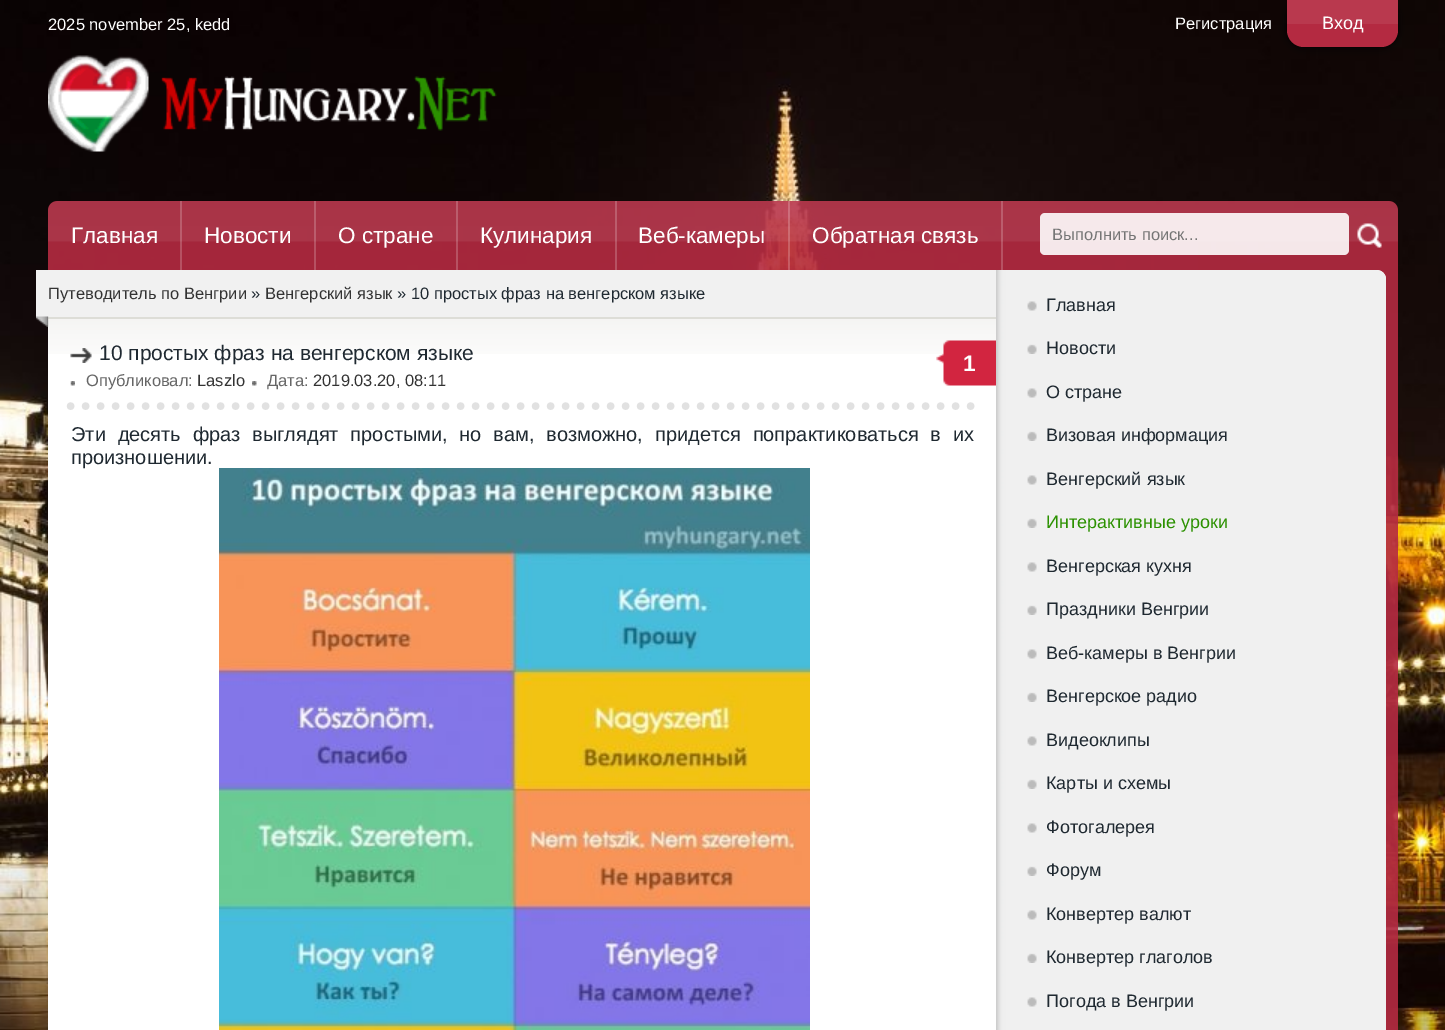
%!PS
<< /PageSize [1445 1030] /PageUsesTransparency true >> setpagedevice
/alpha { dup .setfillconstantalpha .setstrokeconstantalpha } def
/roundrect { 5 dict begin { /r /h /w /y /x } { exch def } forall
  x r add y moveto x w add y 2 copy h add r arct x w add y h add x 1 index r arct
  x y h add x y r arct x y 2 copy exch w add exch r arct closepath end } def
/shadow { 12 dict begin { /a /b /q /h /w /y /x } { exch def } forall gsave /was 0 def
  9 -2 -9 { dup b mul 4 div /e exch def 1 sub .425 mul 2.718 exch exp 1 add a .99 .min exch div /now exch def
    1 1 now sub 1 was sub div sub alpha /was now def
    w h .min e 2 mul add 0 gt { x e sub y e sub w e 2 mul add h e 2 mul add
      q e add b .6 mul add w h .min 2 div e add .min 0 .max roundrect fill } if } for grestore end } def
/picture { 5 dict begin { /h /w /y /x /name } { exch def } forall
  gsave x y translate w h scale
  w h 8 [w 0 0 h 0 0] name (r) file false 3 colorimage grestore end } def
0 .pushpdf14devicefilter
0 1030 translate 1 -1 scale
4 setmiterlimit
1 setgray
0 0 1445 1030 rectfill
(img1.rgb) 0 0 1445 1030 picture
/LiberationSans-Regular [16.5 0 0 -16.5 0 0] selectfont
48 30 moveto (2025 november 25, kedd) show
1175 29 moveto (Регистрация) show
0 setgray
1287 0 111 47 17 4 1 shadow
0.706 0.165 0.255 setrgbcolor
newpath 1287 0 moveto 1398 0 lineto 1398 30 lineto 1398 39.5 1390.5 47 1381 47 curveto 1304 47 lineto 1294.5 47 1287 39.5 1287 30 curveto closepath fill
0.725 0.224 0.306 setrgbcolor
1287 0 111 24 rectfill
/LiberationSans-Regular [18 0 0 -18 0 0] selectfont
1 setgray
1322 29 moveto (Вход) show
(img2.rgb) 48 55 449 97 picture
0.9 alpha
0.706 0.165 0.255 setrgbcolor
newpath 57 201 moveto 1389 201 lineto 1394 201 1398 205 1398 210 curveto 1398 270 lineto 48 270 lineto 48 210 lineto 48 205 52 201 57 201 curveto closepath fill
1 alpha
(img3.rgb) 48 201 1350 41 picture
0.2 alpha
1 setgray
180 201 2 69 rectfill
/LiberationSans-Regular [22.5 0 0 -22.5 0 0] selectfont
1 alpha
71 243 moveto (Главная) show
0.2 alpha
314 201 2 69 rectfill
1 alpha
204 243 moveto (Новости) show
0.2 alpha
456 201 2 69 rectfill
1 alpha
338 243 moveto (О стране) show
0.2 alpha
615 201 2 69 rectfill
1 alpha
480 243 moveto (Кулинария) show
0.2 alpha
788 201 2 69 rectfill
1 alpha
638 243 moveto (Веб-камеры) show
0.2 alpha
1001 201 2 69 rectfill
1 alpha
812 243 moveto (Обратная связь) show
0.89 alpha
1040 213 309 42 5 roundrect fill
/LiberationSans-Regular [16.5 0 0 -16.5 0 0] selectfont
1 alpha
0.459 setgray
1052 240 moveto (Выполнить поиск...) show
(img4.rgb) 1357 223 25 25 picture
0.9 alpha
0.706 0.165 0.255 setrgbcolor
1377 270 21 760 rectfill
1 alpha
1 setgray
newpath 48 270 moveto 1377 270 lineto 1382 270 1386 274 1386 279 curveto 1386 1030 lineto 1386 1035 1382 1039 1377 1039 curveto 57 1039 lineto 52 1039 48 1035 48 1030 curveto closepath fill
(img5.rgb) 996 270 390 760 picture
0.945 setgray
48 270 948 47 rectfill
(img7.rgb) 48 319 948 35 picture
0.867 0.867 0.843 setrgbcolor
48 317 948 2 rectfill
(img6.rgb) 36 270 13 57 picture
0.2 setgray
48 299 moveto (Путеводитель по Венгрии) show
0.122 0.161 0.192 setrgbcolor
251 299 moveto (») show
0.2 setgray
265 299 moveto (Венгерский язык) show
0.122 0.161 0.192 setrgbcolor
397 299 moveto (» 10 простых фраз на венгерском языке) show
(img8.rgb) 70 348 22 15 picture
/LiberationSans-Regular [21 0 0 -21 0 0] selectfont
99 360 moveto (10 простых фраз на венгерском языке) show
(img9.rgb) 936 340 60 46 picture
/LiberationSans-Bold [22.5 0 0 -22.5 0 0] selectfont
1 setgray
963 371 moveto (1) show
0.882 setgray
7.5 setlinewidth
1 setlinecap
[0 15] 0 setdash
newpath 70.5 406 moveto 973.5 406 lineto stroke
(img10.rgb) 70 381 5 5 picture
/LiberationSans-Regular [16.5 0 0 -16.5 0 0] selectfont
0.4 setgray
86 386 moveto (Опубликовал:) show
0.2 setgray
197 386 moveto (Laszlo) show
(img11.rgb) 252 381 5 5 picture
0.4 setgray
267 386 moveto (Дата:) show
0.2 setgray
313 386 moveto (2019.03.20, 08:11) show
/LiberationSans-Regular [20 0 0 -20 0 0] selectfont
0.122 0.161 0.192 setrgbcolor
71 441 moveto 6.25 0 32 (Эти десять фраз выглядят простыми, но вам, возможно, придется попрактиковаться в их) widthshow
71 464 moveto (произношении.) show
(img12.rgb) 219 468 591 562 picture
(img13.rgb) 1027 301 10 10 picture
/LiberationSans-Regular [18 0 0 -18 0 0] selectfont
1046 311 moveto (Главная) show
(img14.rgb) 1027 344 10 10 picture
1046 354 moveto (Новости) show
(img13.rgb) 1027 388 10 10 picture
1046 398 moveto (О стране) show
(img14.rgb) 1027 431 10 10 picture
1046 441 moveto (Визовая информация) show
(img13.rgb) 1027 475 10 10 picture
1046 485 moveto (Венгерский язык) show
(img14.rgb) 1027 518 10 10 picture
0.169 0.569 0 setrgbcolor
1046 528 moveto (Интерактивные уроки) show
(img13.rgb) 1027 562 10 10 picture
0.122 0.161 0.192 setrgbcolor
1046 572 moveto (Венгерская кухня) show
(img14.rgb) 1027 605 10 10 picture
1046 615 moveto (Праздники Венгрии) show
(img13.rgb) 1027 649 10 10 picture
1046 659 moveto (Веб-камеры в Венгрии) show
(img14.rgb) 1027 692 10 10 picture
1046 702 moveto (Венгерское радио) show
(img13.rgb) 1027 736 10 10 picture
1046 746 moveto (Видеоклипы) show
(img14.rgb) 1027 779 10 10 picture
1046 789 moveto (Карты и схемы) show
(img13.rgb) 1027 823 10 10 picture
1046 833 moveto (Фотогалерея) show
(img14.rgb) 1027 866 10 10 picture
1046 876 moveto (Форум) show
(img13.rgb) 1027 910 10 10 picture
1046 920 moveto (Конвертер валют) show
(img14.rgb) 1027 953 10 10 picture
1046 963 moveto (Конвертер глаголов) show
(img13.rgb) 1027 997 10 10 picture
1046 1007 moveto (Погода в Венгрии) show
.poppdf14devicefilter showpage
